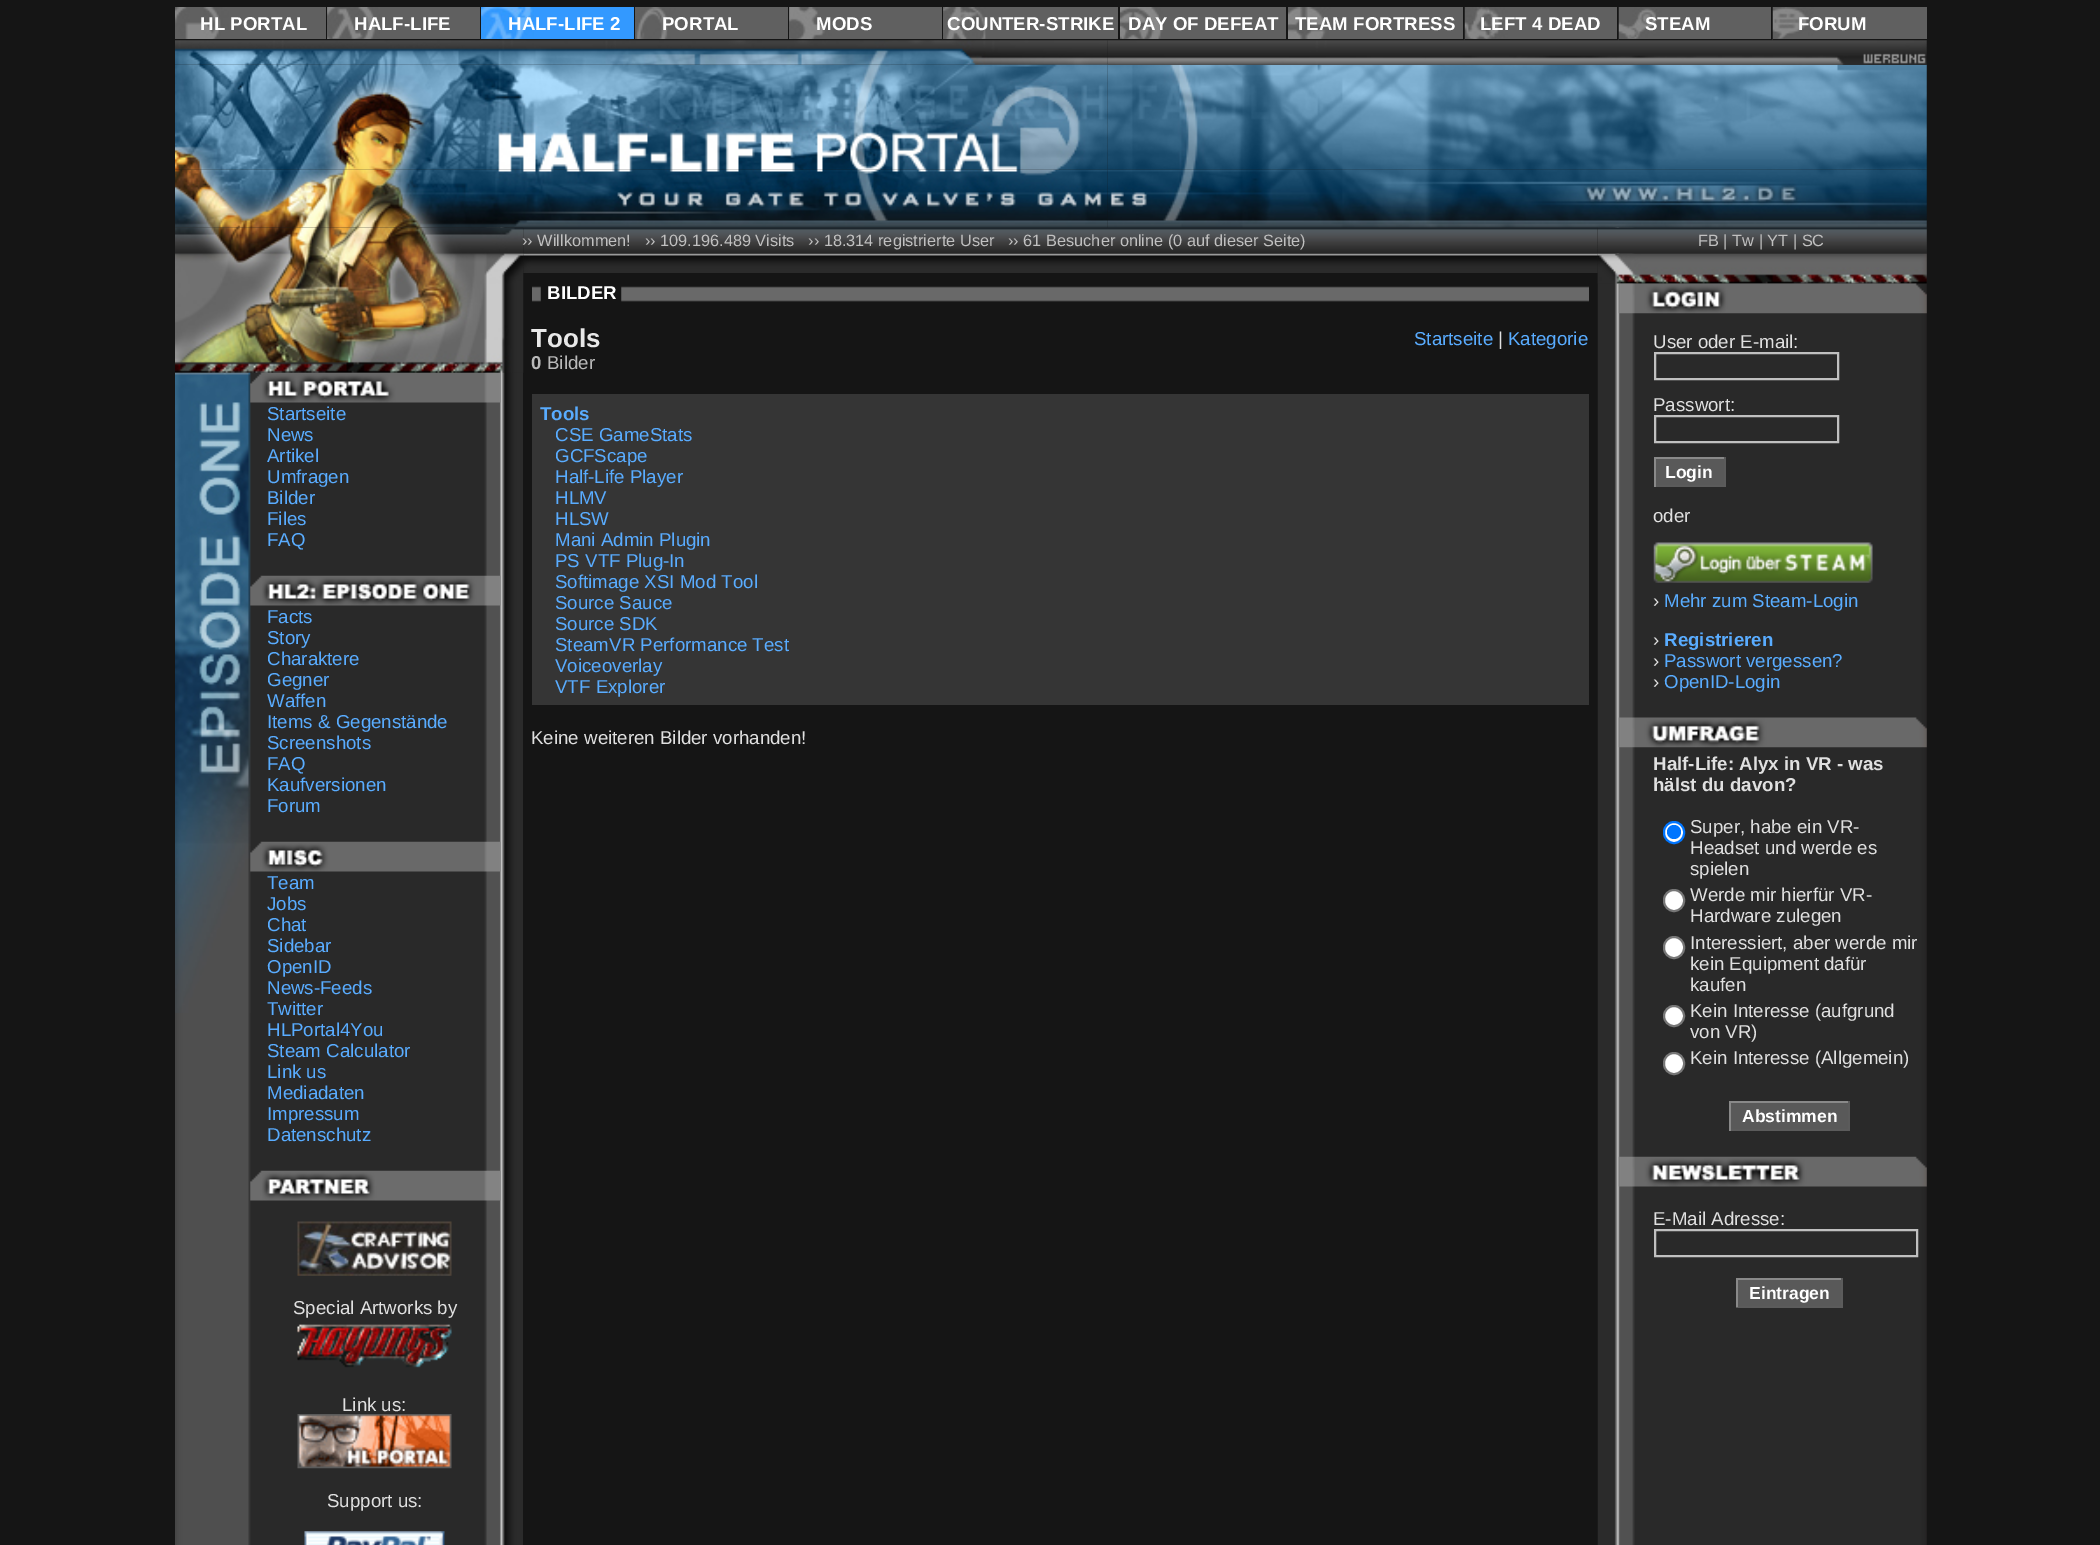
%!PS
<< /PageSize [2100 1545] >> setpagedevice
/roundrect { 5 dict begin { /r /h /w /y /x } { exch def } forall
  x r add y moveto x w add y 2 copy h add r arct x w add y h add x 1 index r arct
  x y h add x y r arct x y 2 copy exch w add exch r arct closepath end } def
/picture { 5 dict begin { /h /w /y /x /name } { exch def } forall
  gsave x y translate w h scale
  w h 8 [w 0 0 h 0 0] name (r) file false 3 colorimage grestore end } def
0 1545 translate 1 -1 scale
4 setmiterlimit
0.082 setgray
0 0 2100 1545 rectfill
0.376 setgray
229 7 97 32 rectfill
(img1.rgb) 175 7 55 32 picture
/LiberationSans-Bold [18.7 0 0 -18.7 0 0] selectfont
1 setgray
200 30 moveto (HL PORTAL) show
0.376 setgray
327 7 153 32 rectfill
(img2.rgb) 327 7 53 32 picture
1 setgray
354 30 moveto (HALF-LIFE) show
0.2 0.6 1 setrgbcolor
481 7 153 32 rectfill
(img3.rgb) 481 7 53 32 picture
1 setgray
508 30 moveto (HALF-LIFE 2) show
0.376 setgray
635 7 153 32 rectfill
(img4.rgb) 635 7 53 32 picture
1 setgray
662 30 moveto (PORTAL) show
0.376 setgray
789 7 153 32 rectfill
(img5.rgb) 789 7 53 32 picture
1 setgray
816 30 moveto (MODS) show
0.376 setgray
943 7 175 32 rectfill
(img6.rgb) 943 7 53 32 picture
1 setgray
947 30 moveto (COUNTER-STRIKE) show
0.376 setgray
1172 7 114 32 rectfill
(img7.rgb) 1120 7 53 32 picture
1 setgray
1128 30 moveto (DAY OF DEFEAT) show
0.376 setgray
1340 7 123 32 rectfill
(img8.rgb) 1288 7 53 32 picture
1 setgray
1295 30 moveto (TEAM FORTRESS) show
0.376 setgray
1517 7 100 32 rectfill
(img9.rgb) 1464 7 54 34 picture
0.082 setgray
1465 39 53 2 rectfill
1 setgray
1480 30 moveto (LEFT 4 DEAD) show
0.376 setgray
1671 7 100 32 rectfill
(img10.rgb) 1618 7 54 34 picture
0.082 setgray
1619 39 53 2 rectfill
1 setgray
1645 30 moveto (STEAM) show
0.376 setgray
1825 7 102 32 rectfill
(img11.rgb) 1772 7 54 34 picture
0.082 setgray
1773 39 53 2 rectfill
1 setgray
1798 30 moveto (FORUM) show
(img15.rgb) 1107 64 820 106 picture
(img12.rgb) 175 40 933 25 picture
(img13.rgb) 1107 40 820 25 picture
(img14.rgb) 175 64 933 106 picture
(img18.rgb) 175 227 349 1318 picture
0.082 setgray
523 228 1 1317 rectfill
(img29.rgb) 523 227 1075 27 picture
(img16.rgb) 175 169 933 59 picture
(img33.rgb) 1597 227 330 1318 picture
(img34.rgb) 1597 227 330 27 picture
(img17.rgb) 1107 169 820 59 picture
(img19.rgb) 175 227 349 146 picture
(img20.rgb) 175 372 76 641 picture
(img21.rgb) 250 372 251 31 picture
/LiberationSans-Regular [18.7 0 0 -18.7 0 0] selectfont
0.349 0.675 1 setrgbcolor
267 420 moveto (Startseite) show
267 441 moveto (News) show
267 462 moveto (Artikel) show
267 483 moveto (Umfragen) show
267 504 moveto (Bilder) show
267 525 moveto (Files) show
267 546 moveto (FAQ) show
(img22.rgb) 250 575 251 31 picture
267 623 moveto (Facts) show
267 644 moveto (Story) show
267 665 moveto (Charaktere) show
267 686 moveto (Gegner) show
267 707 moveto (Waffen) show
267 728 moveto (Items & Gegenstände) show
267 749 moveto (Screenshots) show
267 770 moveto (FAQ) show
267 791 moveto (Kaufversionen) show
267 812 moveto (Forum) show
(img23.rgb) 250 841 251 31 picture
267 889 moveto (Team) show
267 910 moveto (Jobs) show
267 931 moveto (Chat) show
267 952 moveto (Sidebar) show
267 973 moveto (OpenID) show
267 994 moveto (News-Feeds) show
267 1015 moveto (Twitter) show
267 1036 moveto (HLPortal4You) show
267 1057 moveto (Steam Calculator) show
267 1078 moveto (Link us) show
267 1099 moveto (Mediadaten) show
267 1120 moveto (Impressum) show
267 1141 moveto (Datenschutz) show
(img24.rgb) 250 1170 251 31 picture
(img25.rgb) 297 1221 155 55 picture
0.878 setgray
293 1314 moveto (Special Artworks by) show
(img26.rgb) 297 1324 155 44 picture
342 1411 moveto (Link us:) show
(img27.rgb) 297 1414 155 55 picture
327 1507 moveto (Support us:) show
(img28.rgb) 304 1531 141 14 picture
/LiberationSans-Regular [16.35 0 0 -16.35 0 0] selectfont
0.753 setgray
522 246 moveto (›› Willkommen!   ›› 109.196.489 Visits   ›› 18.314 registrierte User   ›› 61 Besucher online \(0 auf dieser Seite\)) show
(img30.rgb) 523 253 1075 20 picture
(img31.rgb) 532 286 9 16 picture
/LiberationSans-Bold [18.7 0 0 -18.7 0 0] selectfont
1 setgray
547 299 moveto (BILDER) show
(img32.rgb) 621 286 968 16 picture
/LiberationSans-Bold [26 0 0 -26 0 0] selectfont
0.91 setgray
531 347 moveto (Tools) show
/LiberationSans-Regular [18.7 0 0 -18.7 0 0] selectfont
0.349 0.675 1 setrgbcolor
1414 345 moveto (Startseite) show
0.878 setgray
1498 345 moveto (|) show
0.349 0.675 1 setrgbcolor
1508 345 moveto (Kategorie) show
/LiberationSans-Bold [18.7 0 0 -18.7 0 0] selectfont
0.725 setgray
531 369 moveto (0) show
/LiberationSans-Regular [18.7 0 0 -18.7 0 0] selectfont
547 369 moveto (Bilder) show
0.208 setgray
532 394 1057 311 rectfill
/LiberationSans-Bold [18.7 0 0 -18.7 0 0] selectfont
0.349 0.675 1 setrgbcolor
540 420 moveto (Tools) show
/LiberationSans-Regular [18.7 0 0 -18.7 0 0] selectfont
555 441 moveto (CSE GameStats) show
555 462 moveto (GCFScape) show
555 483 moveto (Half-Life Player) show
555 504 moveto (HLMV) show
555 525 moveto (HLSW) show
555 546 moveto (Mani Admin Plugin) show
555 567 moveto (PS VTF Plug-In) show
555 588 moveto (Softimage XSI Mod Tool) show
555 609 moveto (Source Sauce) show
555 630 moveto (Source SDK) show
555 651 moveto (SteamVR Performance Test) show
555 672 moveto (Voiceoverlay) show
555 693 moveto (VTF Explorer) show
0.878 setgray
531 744 moveto (Keine weiteren Bilder vorhanden!) show
/LiberationSans-Regular [16.35 0 0 -16.35 0 0] selectfont
0.753 setgray
1698 246 moveto (FB | Tw | YT | SC) show
(img35.rgb) 1597 253 330 31 picture
(img36.rgb) 1618 283 309 31 picture
/LiberationSans-Regular [18.7 0 0 -18.7 0 0] selectfont
0.878 setgray
1653 348 moveto (User oder E-mail:) show
0.753 setgray
2 setlinewidth
1655 353 183 26 rectstroke
0.878 setgray
1653 411 moveto (Passwort:) show
0.753 setgray
1655 416 183 26 rectstroke
0.349 setgray
1656 459 68 26 rectfill
0.537 setgray
1654 457 72 2 rectfill
0.357 setgray
1724 457 2 30 rectfill
1654 485 72 2 rectfill
0.537 setgray
1654 457 2 30 rectfill
/LiberationSans-Bold [17.5 0 0 -17.5 0 0] selectfont
1 setgray
1665 478 moveto (Login) show
/LiberationSans-Regular [18.7 0 0 -18.7 0 0] selectfont
0.878 setgray
1653 522 moveto (oder) show
(img37.rgb) 1653 542 220 41 picture
1653 607 moveto (›) show
0.349 0.675 1 setrgbcolor
1664 607 moveto (Mehr zum Steam-Login) show
0.878 setgray
1653 646 moveto (›) show
/LiberationSans-Bold [18.7 0 0 -18.7 0 0] selectfont
0.349 0.675 1 setrgbcolor
1664 646 moveto (Registrieren) show
/LiberationSans-Regular [18.7 0 0 -18.7 0 0] selectfont
0.878 setgray
1653 667 moveto (›) show
0.349 0.675 1 setrgbcolor
1664 667 moveto (Passwort vergessen?) show
0.878 setgray
1653 688 moveto (›) show
0.349 0.675 1 setrgbcolor
1664 688 moveto (OpenID-Login) show
(img38.rgb) 1618 717 309 31 picture
/LiberationSans-Bold [18.7 0 0 -18.7 0 0] selectfont
0.878 setgray
1653 770 moveto (Half-Life: Alyx in VR - was) show
1653 791 moveto (hälst du davon?) show
1 setgray
1664 822 20 21 10 roundrect gsave fill grestore
0 0.459 1 setrgbcolor
stroke
newpath 1674 832 7 0 360 arc closepath fill
/LiberationSans-Regular [18.7 0 0 -18.7 0 0] selectfont
0.878 setgray
1690 833 moveto (Super, habe ein VR-) show
1690 854 moveto (Headset und werde es) show
1690 875 moveto (spielen) show
1 setgray
1664 890 20 21 10 roundrect gsave fill grestore
0.463 setgray
stroke
0.878 setgray
1690 901 moveto (Werde mir hierfür VR-) show
1690 922 moveto (Hardware zulegen) show
1 setgray
1664 937 20 21 10 roundrect gsave fill grestore
0.463 setgray
stroke
0.878 setgray
1690 949 moveto (Interessiert, aber werde mir) show
1690 970 moveto (kein Equipment dafür) show
1690 991 moveto (kaufen) show
1 setgray
newpath 1674 1016 10 0 360 arc closepath gsave fill grestore
0.463 setgray
stroke
0.878 setgray
1690 1017 moveto (Kein Interesse \(aufgrund) show
1690 1038 moveto (von VR\)) show
1 setgray
1664 1053 20 21 10 roundrect gsave fill grestore
0.463 setgray
stroke
0.878 setgray
1690 1064 moveto (Kein Interesse \(Allgemein\)) show
0.349 setgray
1731 1103 117 26 rectfill
0.537 setgray
1729 1101 121 2 rectfill
0.357 setgray
1848 1101 2 30 rectfill
1729 1129 121 2 rectfill
0.537 setgray
1729 1101 2 30 rectfill
/LiberationSans-Bold [17.5 0 0 -17.5 0 0] selectfont
1 setgray
1742 1122 moveto (Abstimmen) show
(img39.rgb) 1618 1156 309 31 picture
/LiberationSans-Regular [18.7 0 0 -18.7 0 0] selectfont
0.878 setgray
1653 1225 moveto (E-Mail Adresse:) show
0.753 setgray
1655 1230 262 26 rectstroke
0.349 setgray
1738 1280 103 26 rectfill
0.537 setgray
1736 1278 107 2 rectfill
0.357 setgray
1841 1278 2 29 rectfill
1736 1306 107 2 rectfill
0.537 setgray
1736 1278 2 29 rectfill
/LiberationSans-Bold [17.5 0 0 -17.5 0 0] selectfont
1 setgray
1749 1299 moveto (Eintragen) show
showpage
